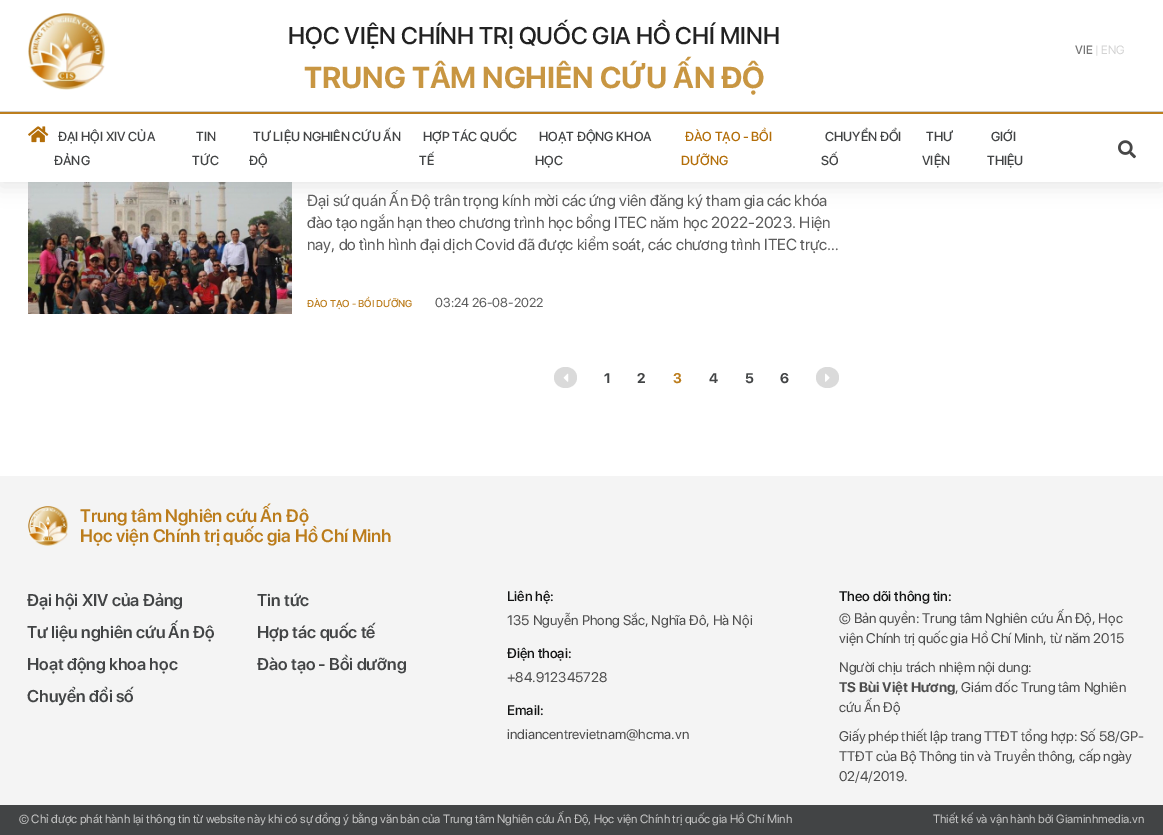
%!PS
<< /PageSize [1163 835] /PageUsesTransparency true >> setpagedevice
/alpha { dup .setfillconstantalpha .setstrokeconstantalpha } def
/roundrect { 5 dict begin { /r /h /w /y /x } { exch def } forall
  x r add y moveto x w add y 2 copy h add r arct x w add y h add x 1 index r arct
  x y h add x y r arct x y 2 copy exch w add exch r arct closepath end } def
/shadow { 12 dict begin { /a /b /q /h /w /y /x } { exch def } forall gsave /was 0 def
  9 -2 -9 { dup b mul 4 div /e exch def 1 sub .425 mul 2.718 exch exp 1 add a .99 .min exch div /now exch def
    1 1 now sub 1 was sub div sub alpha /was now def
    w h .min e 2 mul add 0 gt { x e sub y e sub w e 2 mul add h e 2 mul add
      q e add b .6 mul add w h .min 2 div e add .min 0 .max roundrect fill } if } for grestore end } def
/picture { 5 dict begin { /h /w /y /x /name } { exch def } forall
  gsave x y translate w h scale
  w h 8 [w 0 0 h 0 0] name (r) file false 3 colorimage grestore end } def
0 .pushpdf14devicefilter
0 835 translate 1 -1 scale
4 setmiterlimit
1 setgray
0 0 1163 835 rectfill
(img4.rgb) 28 182 264 132 picture
0 setgray
0 4 1163 182 0 10 0.1 shadow
1 setgray
0 0 1163 182 rectfill
(img1.rgb) 28 13 77 77 picture
/SFProDisplay-Medium [24 0 0 -24 0 0] selectfont
0.133 setgray
288 44 moveto (HỌC VIỆN CHÍNH TRỊ QUỐC GIA HỒ CHÍ MINH) show
/SFProDisplay-Bold [30 0 0 -30 0 0] selectfont
0.784 0.588 0.259 setrgbcolor
304 88 moveto (TRUNG TÂM NGHIÊN CỨU ẤN ĐỘ) show
/SFProDisplay-Medium [12 0 0 -12 0 0] selectfont
0.459 setgray
1075 54 moveto (VIE) show
/SFProDisplay-Regular [12 0 0 -12 0 0] selectfont
0.827 setgray
1095 54 moveto (| ENG) show
0.808 setgray
0 111 1163 1 rectfill
0.737 0.494 0.118 setrgbcolor
0 112 1163 2 rectfill
(img2.rgb) 28 126 21 17 picture
/SFProDisplay-Medium [13 0 0 -13 0 0] selectfont
0.259 0.267 0.271 setrgbcolor
58 141 moveto (ĐẠI HỘI XIV CỦA) show
54 165 moveto (ĐẢNG) show
196 141 moveto (TIN) show
192 165 moveto (TỨC) show
253 141 moveto (TƯ LIỆU NGHIÊN CỨU ẤN) show
249 165 moveto (ĐỘ) show
423 141 moveto (HỢP TÁC QUỐC) show
419 165 moveto (TẾ) show
539 141 moveto (HOẠT ĐỘNG KHOA) show
535 165 moveto (HỌC) show
0.702 0.431 0.035 setrgbcolor
685 141 moveto (ĐÀO TẠO - BỒI) show
681 165 moveto (DƯỠNG) show
0.259 0.267 0.271 setrgbcolor
825 141 moveto (CHUYỂN ĐỔI) show
821 165 moveto (SỐ) show
926 141 moveto (THƯ) show
922 165 moveto (VIỆN) show
991 141 moveto (GIỚI) show
987 165 moveto (THIỆU) show
(img3.rgb) 1118 140 18 19 picture
/SFProDisplay-Regular [16 0 0 -16 0 0] selectfont
0.361 setgray
307 206 moveto (Đại sứ quán Ấn Độ trân trọng kính mời các ứng viên đăng ký tham gia các khóa) show
307 228 moveto (đào tạo ngắn hạn theo chương trình học bổng ITEC năm học 2022-2023. Hiện) show
307 250 moveto (nay, do tình hình đại dịch Covid đã được kiểm soát, các chương trình ITEC trực…) show
/SFProDisplay-Medium [10 0 0 -10 0 0] selectfont
0.733 0.486 0.106 setrgbcolor
307 307 moveto (ĐÀO TẠO - BỒI DƯỠNG) show
/SFProDisplay-Regular [13 0 0 -13 0 0] selectfont
0.361 setgray
435 307 moveto (03:24 26-08-2022) show
0.855 setgray
newpath 565.5 367 moveto 572 367 577 371.5 577 377.5 curveto 577 383.5 572 388 565.5 388 curveto 559 388 554 383.5 554 377.5 curveto 554 371.5 559 367 565.5 367 curveto closepath fill
(img5.rgb) 563 373 6 9 picture
/SFProDisplay-Bold [14 0 0 -14 0 0] selectfont
0.259 0.267 0.271 setrgbcolor
604 383 moveto (1) show
637 383 moveto (2) show
0.733 0.486 0.106 setrgbcolor
673 383 moveto (3) show
0.259 0.267 0.271 setrgbcolor
709 383 moveto (4) show
745 383 moveto (5) show
780 383 moveto (6) show
0.855 setgray
newpath 827.5 367 moveto 834 367 839 371.5 839 377.5 curveto 839 383.5 834 388 827.5 388 curveto 821 388 816 383.5 816 377.5 curveto 816 371.5 821 367 827.5 367 curveto closepath fill
(img6.rgb) 825 373 5 9 picture
0.957 setgray
0 476 1163 329 rectfill
(img7.rgb) 28 506 40 40 picture
/SFProDisplay-SemiBold [18 0 0 -18 0 0] selectfont
0.733 0.486 0.106 setrgbcolor
80 522 moveto (Trung tâm Nghiên cứu Ấn Độ) show
80 542 moveto (Học viện Chính trị quốc gia Hồ Chí Minh) show
/SFProDisplay-SemiBold [17 0 0 -17 0 0] selectfont
0.259 0.267 0.271 setrgbcolor
27 606 moveto (Đại hội XIV của Đảng) show
257 606 moveto (Tin tức) show
27 638 moveto (Tư liệu nghiên cứu Ấn Độ) show
257 638 moveto (Hợp tác quốc tế) show
27 670 moveto (Hoạt động khoa học) show
257 670 moveto (Đào tạo - Bồi dưỡng) show
27 702 moveto (Chuyển đổi số) show
/SFProDisplay-Medium [14 0 0 -14 0 0] selectfont
0.075 0.078 0.078 setrgbcolor
507 601 moveto (Liên hệ:) show
/SFProDisplay-Regular [14 0 0 -14 0 0] selectfont
0.302 setgray
507 625 moveto (135 Nguyễn Phong Sắc, Nghĩa Đô, Hà Nội) show
/SFProDisplay-Medium [14 0 0 -14 0 0] selectfont
0.075 0.078 0.078 setrgbcolor
507 658 moveto (Điện thoại:) show
/SFProDisplay-Regular [14 0 0 -14 0 0] selectfont
0.302 setgray
507 682 moveto (+84.912345728) show
/SFProDisplay-Medium [14 0 0 -14 0 0] selectfont
0.075 0.078 0.078 setrgbcolor
507 715 moveto (Email:) show
/SFProDisplay-Regular [14 0 0 -14 0 0] selectfont
0.302 setgray
507 739 moveto (indiancentrevietnam@hcma.vn) show
/SFProDisplay-Medium [14 0 0 -14 0 0] selectfont
0.075 0.078 0.078 setrgbcolor
839 601 moveto (Theo dõi thông tin:) show
/SFProDisplay-Regular [14 0 0 -14 0 0] selectfont
0.302 setgray
839 623 moveto (© Bản quyền: Trung tâm Nghiên cứu Ấn Độ, Học) show
839 643 moveto (viện Chính trị quốc gia Hồ Chí Minh, từ năm 2015) show
839 672 moveto (Người chịu trách nhiệm nội dung:) show
/SFProDisplay-Bold [14 0 0 -14 0 0] selectfont
839 692 moveto (TS Bùi Việt Hương) show
/SFProDisplay-Regular [14 0 0 -14 0 0] selectfont
955 692 moveto (, Giám đốc Trung tâm Nghiên) show
839 712 moveto (cứu Ấn Độ) show
839 741 moveto (Giấy phép thiết lập trang TTĐT tổng hợp: Số 58/GP-) show
839 761 moveto (TTĐT của Bộ Thông tin và Truyền thông, cấp ngày) show
839 781 moveto (02/4/2019.) show
0.259 0.267 0.271 setrgbcolor
0 805 1163 30 rectfill
/SFProDisplay-Regular [12 0 0 -12 0 0] selectfont
0.773 setgray
19 823 moveto (© Chỉ được phát hành lại thông tin từ website này khi có sự đồng ý bằng văn bản của Trung tâm Nghiên cứu Ấn Độ, Học viện Chính trị quốc gia Hồ Chí Minh) show
933 823 moveto (Thiết kế và vận hành bởi Giaminhmedia.vn) show
.poppdf14devicefilter showpage
